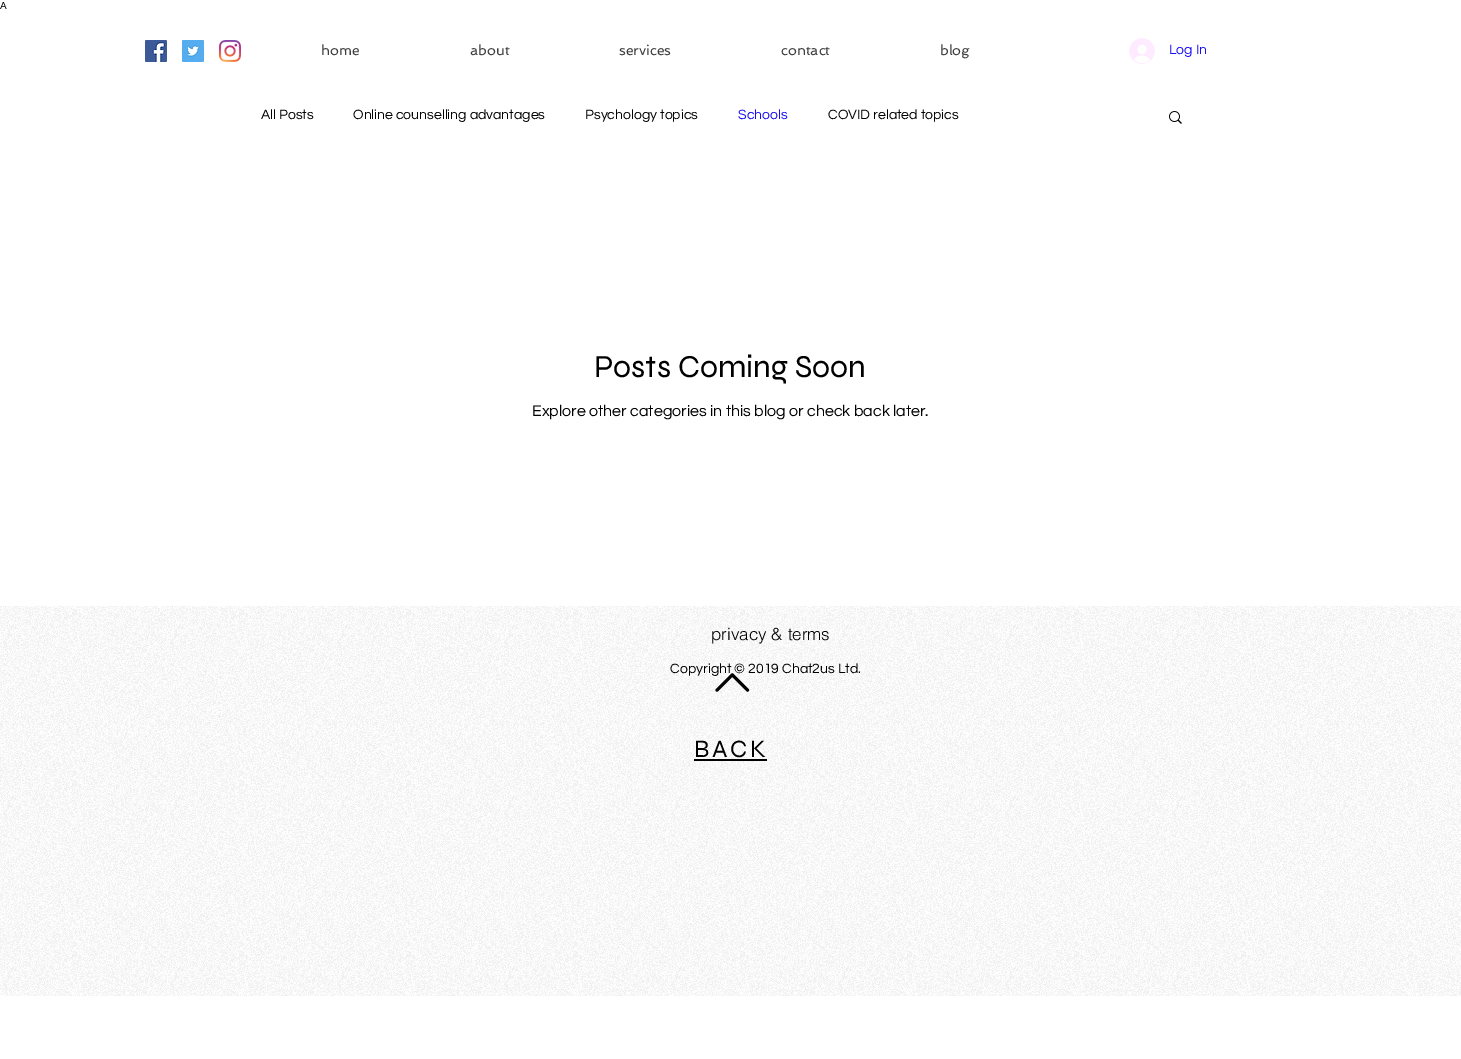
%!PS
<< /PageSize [1461 1059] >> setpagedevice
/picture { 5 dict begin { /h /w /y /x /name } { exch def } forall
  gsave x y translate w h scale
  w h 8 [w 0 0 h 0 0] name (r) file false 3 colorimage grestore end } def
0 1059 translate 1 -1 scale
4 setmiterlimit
1 setgray
0 0 1461 1059 rectfill
/LiberationSans-Regular [10 0 0 -10 0 0] selectfont
0 setgray
0 9 moveto (A) show
(img1.rgb) 145 40 22 22 picture
(img2.rgb) 182 40 22 22 picture
(img3.rgb) 219 40 22 22 picture
/Spinnaker-Regular [14 0 0 -14 0 0] selectfont
0.251 setgray
321 55 moveto (home) show
470 55 moveto (about) show
619 55 moveto (services) show
781 55 moveto (contact) show
940 55 moveto (blog) show
(img4.rgb) 1129 38 26 26 picture
/Questrial-Regular [14 0 0 -14 0 0] selectfont
0.09 0.051 0.949 setrgbcolor
1169 54 moveto (Log In) show
0 setgray
261 119 moveto (All Posts) show
353 119 moveto (Online counselling advantages) show
585 119 moveto (Psychology topics) show
0.09 0.051 0.949 setrgbcolor
738 119 moveto (Schools) show
0 setgray
828 119 moveto (COVID related topics) show
(img5.rgb) 1169 111 13 13 picture
/Syne-Regular [32 0 0 -32 0 0] selectfont
594 377 moveto (Posts Coming Soon) show
/Questrial-Regular [16 0 0 -16 0 0] selectfont
532 416 moveto (Explore other categories in this blog or check back later.) show
(img6.rgb) 0 606 1461 390 picture
/helvetica-Light [17 0 0 -17 0 0] selectfont
711 640 moveto (privacy & terms) show
(img7.rgb) 715 673 35 19 picture
/Questrial-Regular [14 0 0 -14 0 0] selectfont
670 673 moveto (Copyright © 2019 Chat2us Ltd.) show
/Syne-Regular [25 0 0 -25 0 0] selectfont
694 757 moveto 2.5 0 (BACK) ashow
694 759 73 2 rectfill
showpage
